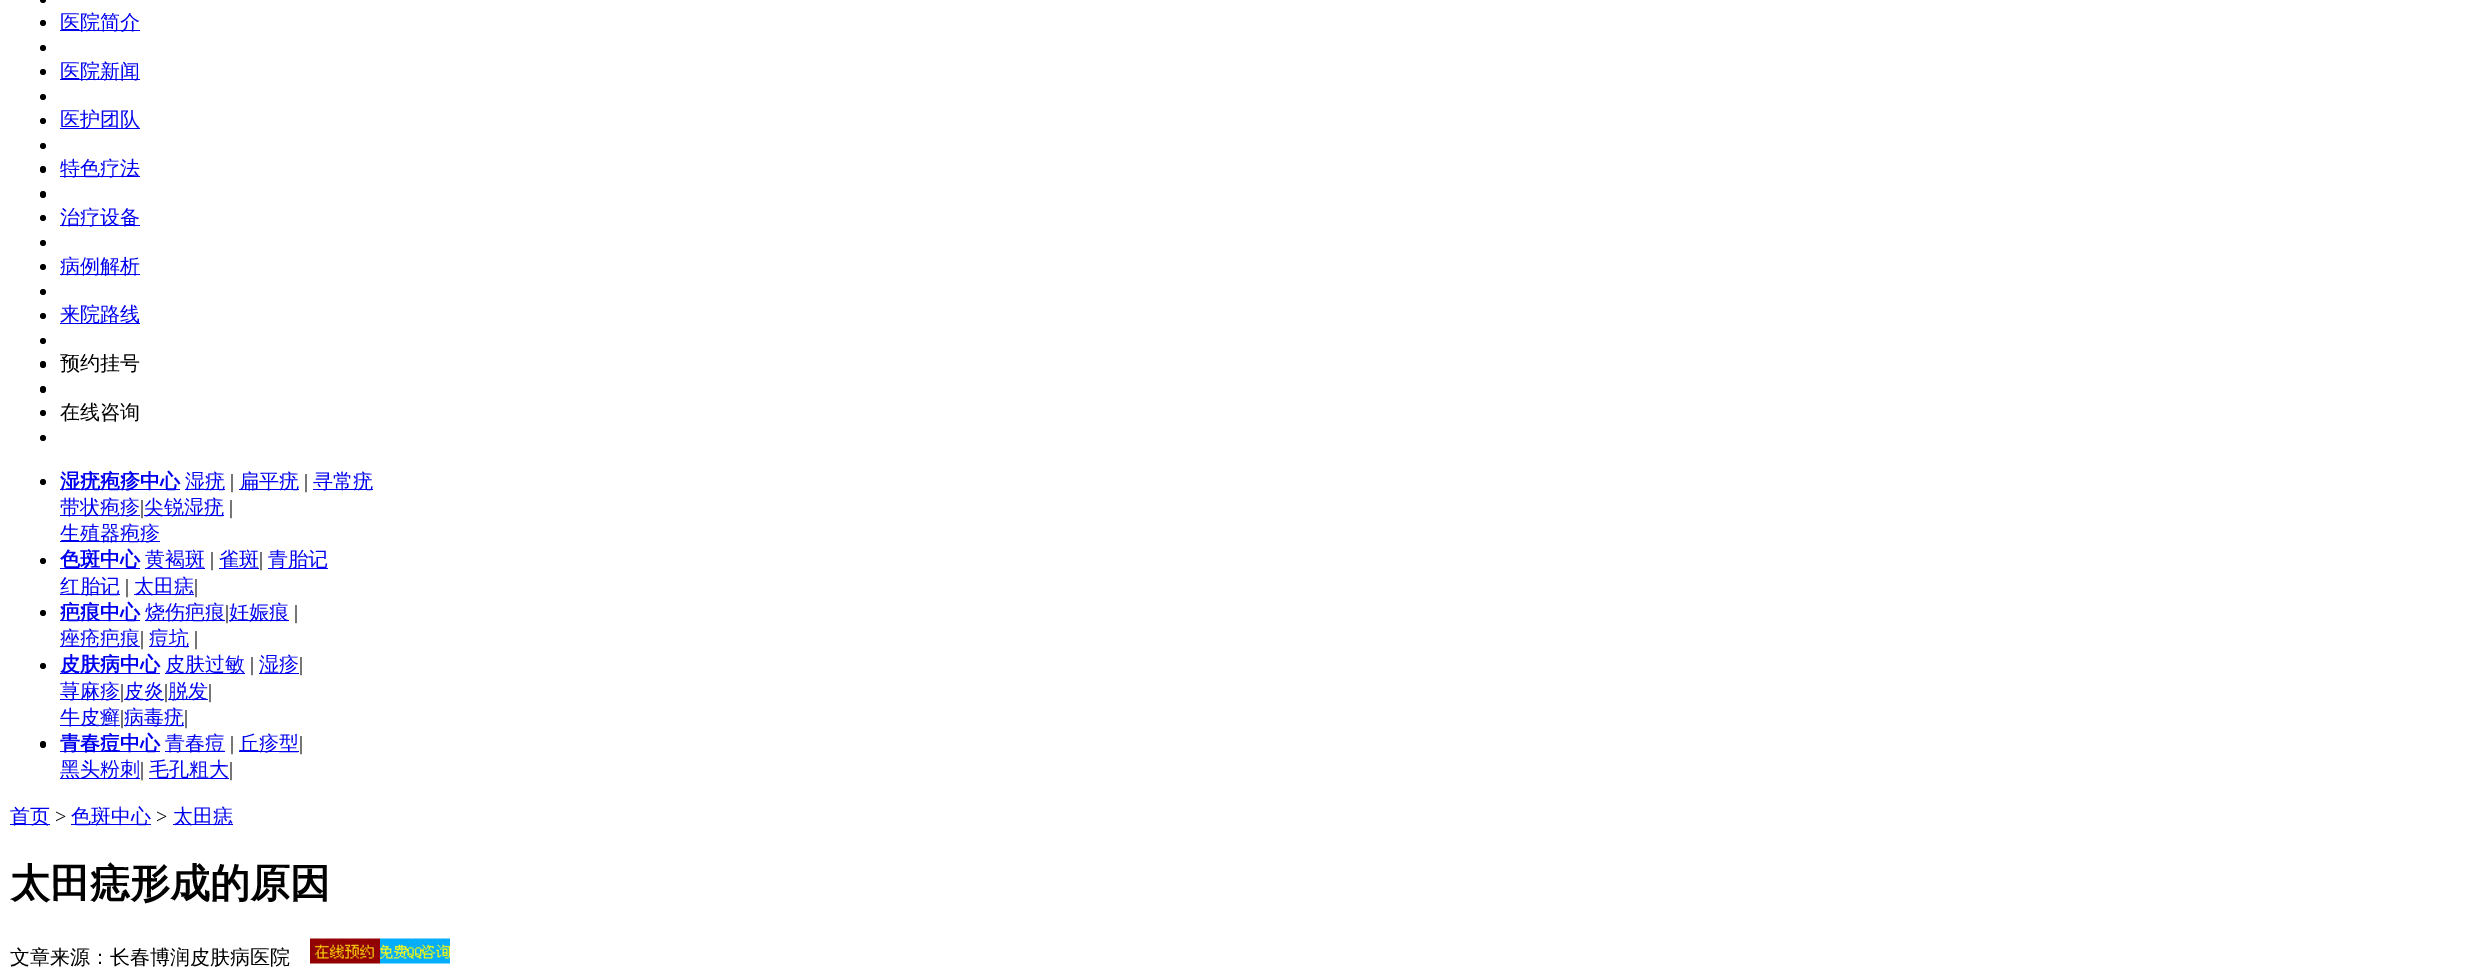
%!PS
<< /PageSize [2471 973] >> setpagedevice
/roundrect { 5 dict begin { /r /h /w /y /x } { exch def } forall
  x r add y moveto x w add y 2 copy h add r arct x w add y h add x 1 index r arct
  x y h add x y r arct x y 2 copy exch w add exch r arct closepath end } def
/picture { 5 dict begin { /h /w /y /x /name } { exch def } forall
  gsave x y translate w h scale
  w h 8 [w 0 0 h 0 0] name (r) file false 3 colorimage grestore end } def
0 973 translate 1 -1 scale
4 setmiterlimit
1 setgray
0 0 2471 973 rectfill
0 setgray
newpath 43 0 3 0 360 arc closepath fill
newpath 43 23 3 0 360 arc closepath fill
0 0 0.933 setrgbcolor
60 30 80 1 rectfill
/WenQuanYiZenHei-Medium [20 0 0 -20 0 0] selectfont
60 29 moveto (医院简介) show
0 setgray
newpath 43 48 3 0 360 arc closepath fill
newpath 43 72 3 0 360 arc closepath fill
0 0 0.933 setrgbcolor
60 79 80 1 rectfill
60 78 moveto (医院新闻) show
0 setgray
newpath 43 97 3 0 360 arc closepath fill
newpath 43 121 3 0 360 arc closepath fill
0 0 0.933 setrgbcolor
60 128 80 1 rectfill
60 126 moveto (医护团队) show
0 setgray
newpath 43 146 3 0 360 arc closepath fill
40 166 6 7 3 roundrect fill
0 0 0.933 setrgbcolor
60 176 80 1 rectfill
60 175 moveto (特色疗法) show
0 setgray
40 191 6 7 3 roundrect fill
newpath 43 218 3 0 360 arc closepath fill
0 0 0.933 setrgbcolor
60 225 80 1 rectfill
60 224 moveto (治疗设备) show
0 setgray
newpath 43 243 3 0 360 arc closepath fill
newpath 43 267 3 0 360 arc closepath fill
0 0 0.933 setrgbcolor
60 274 80 1 rectfill
60 273 moveto (病例解析) show
0 setgray
newpath 43 292 3 0 360 arc closepath fill
newpath 43 316 3 0 360 arc closepath fill
0 0 0.933 setrgbcolor
60 323 80 1 rectfill
60 321 moveto (来院路线) show
0 setgray
newpath 43 341 3 0 360 arc closepath fill
40 361 6 7 3 roundrect fill
60 370 moveto (预约挂号) show
40 386 6 7 3 roundrect fill
newpath 43 413 3 0 360 arc closepath fill
60 419 moveto (在线咨询) show
newpath 43 438 3 0 360 arc closepath fill
newpath 43 482 3 0 360 arc closepath fill
0 0 0.933 setrgbcolor
60 489 120 1 rectfill
/WenQuanYiZenHei-Bold [20 0 0 -20 0 0] selectfont
60 488 moveto (湿疣疱疹中心) show
185 489 40 1 rectfill
/WenQuanYiZenHei-Medium [20 0 0 -20 0 0] selectfont
185 488 moveto (湿疣) show
/LiberationSerif-Regular [20 0 0 -20 0 0] selectfont
0 setgray
230 488 moveto (|) show
0 0 0.933 setrgbcolor
239 489 60 1 rectfill
/WenQuanYiZenHei-Medium [20 0 0 -20 0 0] selectfont
239 488 moveto (扁平疣) show
/LiberationSerif-Regular [20 0 0 -20 0 0] selectfont
0 setgray
304 488 moveto (|) show
0 0 0.933 setrgbcolor
313 489 60 1 rectfill
/WenQuanYiZenHei-Medium [20 0 0 -20 0 0] selectfont
313 488 moveto (寻常疣) show
60 515 80 1 rectfill
60 514 moveto (带状疱疹) show
/LiberationSerif-Regular [20 0 0 -20 0 0] selectfont
0 setgray
140 514 moveto (|) show
0 0 0.933 setrgbcolor
144 515 80 1 rectfill
/WenQuanYiZenHei-Medium [20 0 0 -20 0 0] selectfont
144 514 moveto (尖锐湿疣) show
/LiberationSerif-Regular [20 0 0 -20 0 0] selectfont
0 setgray
229 514 moveto (|) show
0 0 0.933 setrgbcolor
60 541 100 1 rectfill
/WenQuanYiZenHei-Medium [20 0 0 -20 0 0] selectfont
60 540 moveto (生殖器疱疹) show
0 setgray
newpath 43 561 3 0 360 arc closepath fill
0 0 0.933 setrgbcolor
60 568 80 1 rectfill
/WenQuanYiZenHei-Bold [20 0 0 -20 0 0] selectfont
60 566 moveto (色斑中心) show
145 568 60 1 rectfill
/WenQuanYiZenHei-Medium [20 0 0 -20 0 0] selectfont
145 566 moveto (黄褐斑) show
/LiberationSerif-Regular [20 0 0 -20 0 0] selectfont
0 setgray
210 566 moveto (|) show
0 0 0.933 setrgbcolor
219 568 40 1 rectfill
/WenQuanYiZenHei-Medium [20 0 0 -20 0 0] selectfont
219 566 moveto (雀斑) show
/LiberationSerif-Regular [20 0 0 -20 0 0] selectfont
0 setgray
259 566 moveto (|) show
0 0 0.933 setrgbcolor
268 568 60 1 rectfill
/WenQuanYiZenHei-Medium [20 0 0 -20 0 0] selectfont
268 566 moveto (青胎记) show
60 594 60 1 rectfill
60 593 moveto (红胎记) show
/LiberationSerif-Regular [20 0 0 -20 0 0] selectfont
0 setgray
125 593 moveto (|) show
0 0 0.933 setrgbcolor
134 594 60 1 rectfill
/WenQuanYiZenHei-Medium [20 0 0 -20 0 0] selectfont
134 593 moveto (太田痣) show
/LiberationSerif-Regular [20 0 0 -20 0 0] selectfont
0 setgray
194 593 moveto (|) show
newpath 43 613 3 0 360 arc closepath fill
0 0 0.933 setrgbcolor
60 620 80 1 rectfill
/WenQuanYiZenHei-Bold [20 0 0 -20 0 0] selectfont
60 619 moveto (疤痕中心) show
145 620 80 1 rectfill
/WenQuanYiZenHei-Medium [20 0 0 -20 0 0] selectfont
145 619 moveto (烧伤疤痕) show
/LiberationSerif-Regular [20 0 0 -20 0 0] selectfont
0 setgray
225 619 moveto (|) show
0 0 0.933 setrgbcolor
229 620 60 1 rectfill
/WenQuanYiZenHei-Medium [20 0 0 -20 0 0] selectfont
229 619 moveto (妊娠痕) show
/LiberationSerif-Regular [20 0 0 -20 0 0] selectfont
0 setgray
294 619 moveto (|) show
0 0 0.933 setrgbcolor
60 646 80 1 rectfill
/WenQuanYiZenHei-Medium [20 0 0 -20 0 0] selectfont
60 645 moveto (痤疮疤痕) show
/LiberationSerif-Regular [20 0 0 -20 0 0] selectfont
0 setgray
140 645 moveto (|) show
0 0 0.933 setrgbcolor
149 646 40 1 rectfill
/WenQuanYiZenHei-Medium [20 0 0 -20 0 0] selectfont
149 645 moveto (痘坑) show
/LiberationSerif-Regular [20 0 0 -20 0 0] selectfont
0 setgray
194 645 moveto (|) show
newpath 43 666 3 0 360 arc closepath fill
0 0 0.933 setrgbcolor
60 673 100 1 rectfill
/WenQuanYiZenHei-Bold [20 0 0 -20 0 0] selectfont
60 671 moveto (皮肤病中心) show
165 673 80 1 rectfill
/WenQuanYiZenHei-Medium [20 0 0 -20 0 0] selectfont
165 671 moveto (皮肤过敏) show
/LiberationSerif-Regular [20 0 0 -20 0 0] selectfont
0 setgray
250 671 moveto (|) show
0 0 0.933 setrgbcolor
259 673 40 1 rectfill
/WenQuanYiZenHei-Medium [20 0 0 -20 0 0] selectfont
259 671 moveto (湿疹) show
/LiberationSerif-Regular [20 0 0 -20 0 0] selectfont
0 setgray
299 671 moveto (|) show
0 0 0.933 setrgbcolor
60 699 60 1 rectfill
/WenQuanYiZenHei-Medium [20 0 0 -20 0 0] selectfont
60 698 moveto (荨麻疹) show
/LiberationSerif-Regular [20 0 0 -20 0 0] selectfont
0 setgray
120 698 moveto (|) show
0 0 0.933 setrgbcolor
124 699 40 1 rectfill
/WenQuanYiZenHei-Medium [20 0 0 -20 0 0] selectfont
124 698 moveto (皮炎) show
/LiberationSerif-Regular [20 0 0 -20 0 0] selectfont
0 setgray
164 698 moveto (|) show
0 0 0.933 setrgbcolor
168 699 40 1 rectfill
/WenQuanYiZenHei-Medium [20 0 0 -20 0 0] selectfont
168 698 moveto (脱发) show
/LiberationSerif-Regular [20 0 0 -20 0 0] selectfont
0 setgray
208 698 moveto (|) show
0 0 0.933 setrgbcolor
60 725 60 1 rectfill
/WenQuanYiZenHei-Medium [20 0 0 -20 0 0] selectfont
60 724 moveto (牛皮癣) show
/LiberationSerif-Regular [20 0 0 -20 0 0] selectfont
0 setgray
120 724 moveto (|) show
0 0 0.933 setrgbcolor
124 725 60 1 rectfill
/WenQuanYiZenHei-Medium [20 0 0 -20 0 0] selectfont
124 724 moveto (病毒疣) show
/LiberationSerif-Regular [20 0 0 -20 0 0] selectfont
0 setgray
184 724 moveto (|) show
40 741 6 7 3 roundrect fill
0 0 0.933 setrgbcolor
60 751 100 1 rectfill
/WenQuanYiZenHei-Bold [20 0 0 -20 0 0] selectfont
60 750 moveto (青春痘中心) show
165 751 60 1 rectfill
/WenQuanYiZenHei-Medium [20 0 0 -20 0 0] selectfont
165 750 moveto (青春痘) show
/LiberationSerif-Regular [20 0 0 -20 0 0] selectfont
0 setgray
230 750 moveto (|) show
0 0 0.933 setrgbcolor
239 751 60 1 rectfill
/WenQuanYiZenHei-Medium [20 0 0 -20 0 0] selectfont
239 750 moveto (丘疹型) show
/LiberationSerif-Regular [20 0 0 -20 0 0] selectfont
0 setgray
299 750 moveto (|) show
0 0 0.933 setrgbcolor
60 778 80 1 rectfill
/WenQuanYiZenHei-Medium [20 0 0 -20 0 0] selectfont
60 776 moveto (黑头粉刺) show
/LiberationSerif-Regular [20 0 0 -20 0 0] selectfont
0 setgray
140 776 moveto (|) show
0 0 0.933 setrgbcolor
149 778 80 1 rectfill
/WenQuanYiZenHei-Medium [20 0 0 -20 0 0] selectfont
149 776 moveto (毛孔粗大) show
/LiberationSerif-Regular [20 0 0 -20 0 0] selectfont
0 setgray
229 776 moveto (|) show
0 0 0.933 setrgbcolor
10 824 40 1 rectfill
/WenQuanYiZenHei-Medium [20 0 0 -20 0 0] selectfont
10 823 moveto (首页) show
/LiberationSerif-Regular [20 0 0 -20 0 0] selectfont
0 setgray
55 823 moveto (>) show
0 0 0.933 setrgbcolor
71 824 80 1 rectfill
/WenQuanYiZenHei-Medium [20 0 0 -20 0 0] selectfont
71 823 moveto (色斑中心) show
/LiberationSerif-Regular [20 0 0 -20 0 0] selectfont
0 setgray
156 823 moveto (>) show
0 0 0.933 setrgbcolor
173 824 60 1 rectfill
/WenQuanYiZenHei-Medium [20 0 0 -20 0 0] selectfont
173 823 moveto (太田痣) show
/WenQuanYiZenHei-Bold [40 0 0 -40 0 0] selectfont
0 setgray
10 897 moveto (太田痣形成的原因) show
/WenQuanYiZenHei-Medium [20 0 0 -20 0 0] selectfont
10 964 moveto (文章来源：长春博润皮肤病医院) show
(img1.rgb) 310 938 70 26 picture
(img2.rgb) 380 938 70 26 picture
showpage
